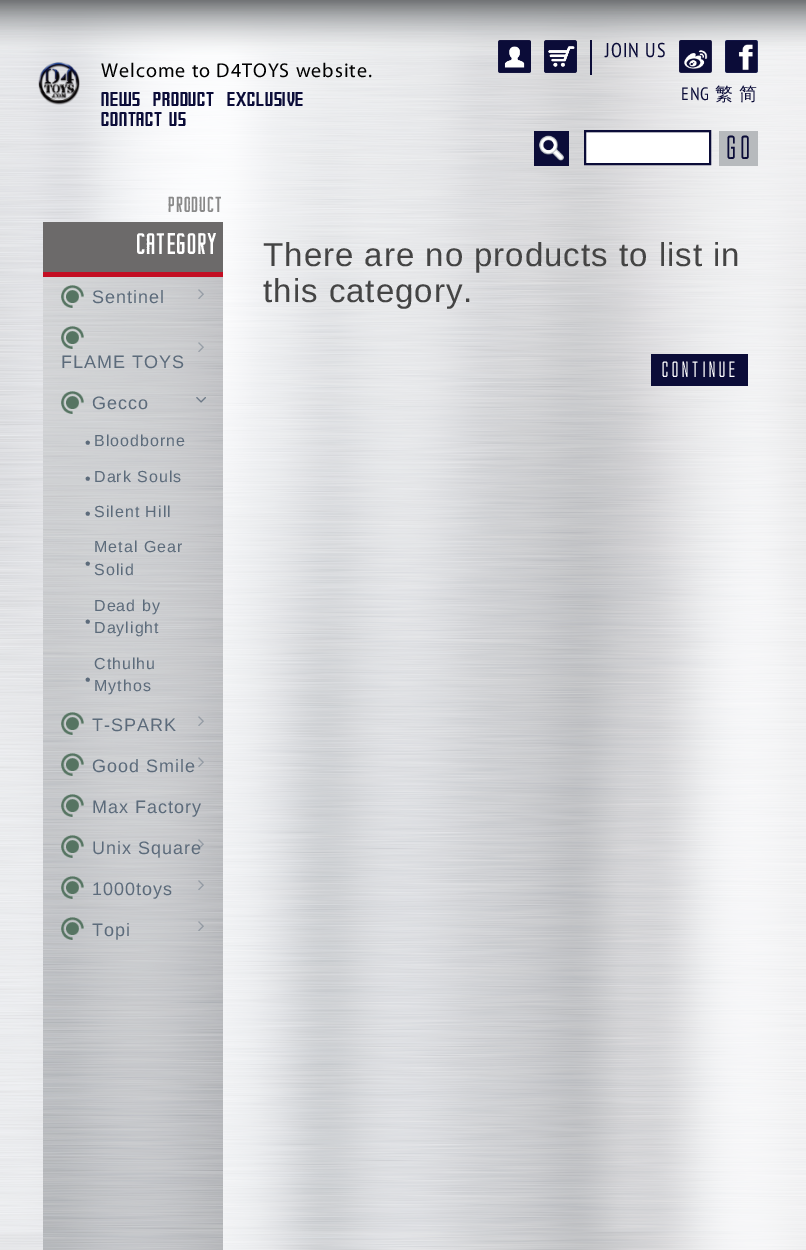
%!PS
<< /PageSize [806 1250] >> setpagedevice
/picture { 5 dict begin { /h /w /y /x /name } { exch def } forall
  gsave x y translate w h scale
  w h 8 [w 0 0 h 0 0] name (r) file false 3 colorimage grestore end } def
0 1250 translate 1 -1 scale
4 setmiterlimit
1 setgray
0 0 806 1250 rectfill
(img1.rgb) 0 1 806 1249 picture
(img2.rgb) 0 0 806 55 picture
(img3.rgb) 38 62 42 43 picture
/Myriad-Regular [20 0 0 -20 0 0] selectfont
0 setgray
101 77 moveto 1 0 (Welcome to D4TOYS website.) ashow
/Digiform-Regular [20 0 0 -20 0 0] selectfont
0.043 0.047 0.22 setrgbcolor
101 106 moveto 1 0 (NEWS) ashow
153 106 moveto 1 0 (PRODUCT) ashow
227 106 moveto 1 0 (EXCLUSIVE) ashow
101 126 moveto 1 0 (CONTACT US) ashow
(img4.rgb) 498 40 33 33 picture
0.937 setgray
544 40 33 33 rectfill
(img5.rgb) 544 40 33 33 picture
0.043 0.047 0.22 setrgbcolor
590 40 2 35 rectfill
/PTSansNarrow-Regular [20 0 0 -20 0 0] selectfont
605 57 moveto 1 0 (JOIN US) ashow
(img6.rgb) 679 40 33 33 picture
(img7.rgb) 725 40 33 33 picture
/PTSansNarrow-Regular [18 0 0 -18 0 0] selectfont
681 100 moveto 1 0 (ENG) ashow
/WenQuanYiZenHei-Medium [18 0 0 -18 0 0] selectfont
715 100 moveto 1 0 (繁) ashow
739 100 moveto 1 0 (简) ashow
(img8.rgb) 534 131 35 35 picture
1 setgray
586 133 123 30 rectfill
0.925 setgray
586 132 123 1 rectfill
0.043 0.047 0.22 setrgbcolor
2 setlinewidth
585 131 125 33 rectstroke
0.718 0.729 0.741 setrgbcolor
719 131 39 35 rectfill
/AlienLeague-Bold [30 0 0 -30 0 0] selectfont
0.043 0.047 0.22 setrgbcolor
725 159 moveto (GO) show
/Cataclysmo-Regular [22 0 0 -22 0 0] selectfont
0.537 setgray
168 212 moveto 1 0 (PRODUCT) ashow
0.424 0.416 0.416 setrgbcolor
43 222 180 50 rectfill
0.765 0.055 0.137 setrgbcolor
43 272 180 5 rectfill
/Cataclysmo-Regular [30 0 0 -30 0 0] selectfont
1 setgray
136 254 moveto 1 0 (CATEGORY) ashow
(img9.rgb) 43 277 180 973 picture
(img10.rgb) 61 285 23 23 picture
/LiberationSans-Regular [18 0 0 -18 0 0] selectfont
0.361 0.42 0.482 setrgbcolor
92 303 moveto 1 0 (Sentinel) ashow
(img11.rgb) 198 289 6 10 picture
(img12.rgb) 198 342 6 10 picture
(img13.rgb) 61 326 23 23 picture
61 368 moveto 1 0 (FLAME TOYS) ashow
(img14.rgb) 61 391 23 23 picture
92 409 moveto 1 0 (Gecco) ashow
(img15.rgb) 196 397 10 6 picture
/LiberationSans-Regular [16 0 0 -16 0 0] selectfont
85 448 moveto 1 0 (•) ashow
94 446 moveto 1 0 (Bloodborne) ashow
85 484 moveto 1 0 (•) ashow
94 482 moveto 1 0 (Dark Souls) ashow
85 519 moveto 1 0 (•) ashow
94 517 moveto 1 0 (Silent Hill) ashow
94 552 moveto 1 0 (Metal Gear) ashow
85 569 moveto 1 0 (•) ashow
94 575 moveto 1 0 (Solid) ashow
94 611 moveto 1 0 (Dead by) ashow
85 627 moveto 1 0 (•) ashow
94 633 moveto 1 0 (Daylight) ashow
94 669 moveto 1 0 (Cthulhu) ashow
85 685 moveto 1 0 (•) ashow
94 691 moveto 1 0 (Mythos) ashow
(img16.rgb) 61 712 23 23 picture
/LiberationSans-Regular [18 0 0 -18 0 0] selectfont
92 731 moveto 1 0 (T-SPARK) ashow
(img17.rgb) 198 716 6 10 picture
(img18.rgb) 61 753 23 23 picture
92 772 moveto 1 0 (Good Smile) ashow
(img19.rgb) 198 757 6 10 picture
(img20.rgb) 61 794 23 23 picture
92 813 moveto 1 0 (Max Factory) ashow
92 854 moveto 1 0 (Unix Square) ashow
(img21.rgb) 198 839 6 10 picture
(img22.rgb) 61 835 23 23 picture
(img23.rgb) 61 876 23 23 picture
92 895 moveto 1 0 (1000toys) ashow
(img24.rgb) 198 880 6 10 picture
(img25.rgb) 61 917 23 23 picture
92 936 moveto 1 0 (Topi) ashow
(img26.rgb) 198 921 6 10 picture
/LiberationSans-Regular [33 0 0 -33 0 0] selectfont
0.267 setgray
263 266 moveto 1 0 (There are no products to list in) ashow
263 302 moveto 1 0 (this category.) ashow
0.043 0.047 0.22 setrgbcolor
651 354 97 32 rectfill
/AlienLeague-Bold [20 0 0 -20 0 0] selectfont
1 setgray
661 377 moveto 1 0 (Continue) ashow
showpage
